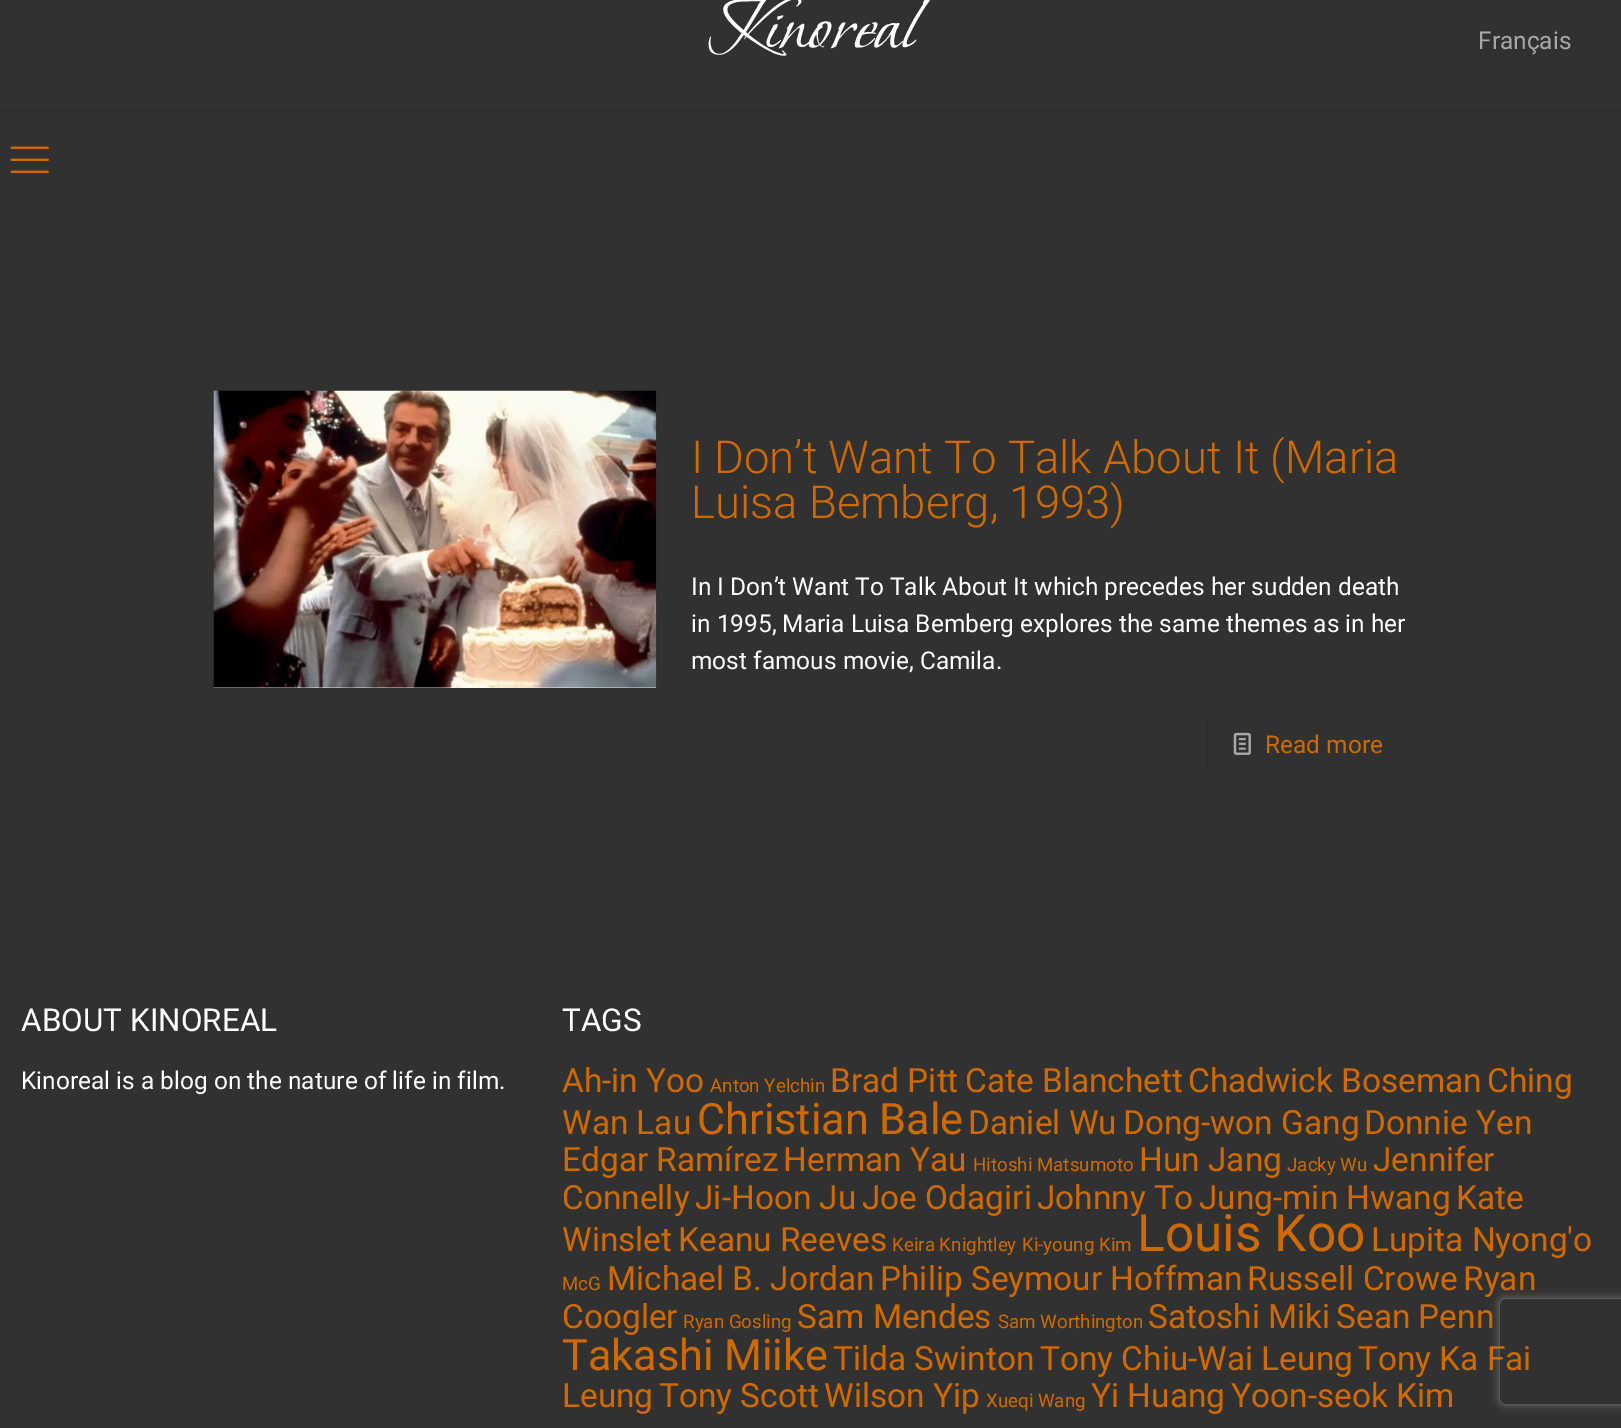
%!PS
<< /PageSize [1621 1428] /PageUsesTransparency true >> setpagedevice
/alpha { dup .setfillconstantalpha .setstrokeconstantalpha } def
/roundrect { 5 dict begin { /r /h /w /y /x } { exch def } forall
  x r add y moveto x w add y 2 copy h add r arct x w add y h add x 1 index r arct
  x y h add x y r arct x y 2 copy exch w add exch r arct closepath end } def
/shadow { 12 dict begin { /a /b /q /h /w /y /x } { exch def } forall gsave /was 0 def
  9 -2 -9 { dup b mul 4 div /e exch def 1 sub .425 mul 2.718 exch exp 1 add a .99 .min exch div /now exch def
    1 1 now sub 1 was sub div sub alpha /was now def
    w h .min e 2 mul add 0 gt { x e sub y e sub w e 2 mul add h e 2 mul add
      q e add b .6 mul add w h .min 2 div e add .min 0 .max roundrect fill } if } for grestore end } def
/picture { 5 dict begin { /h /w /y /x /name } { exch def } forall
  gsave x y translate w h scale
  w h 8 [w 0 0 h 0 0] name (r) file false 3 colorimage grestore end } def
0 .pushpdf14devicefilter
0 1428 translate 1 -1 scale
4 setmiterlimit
0.192 setgray
0 0 1621 1428 rectfill
0.176 setgray
0 110 1621 2 rectfill
/BonheurRoyale-Regular [84 0 0 -84 0 0] selectfont
1 setgray
706 47 moveto (Kinoreal) show
/Roboto-Regular [24.5 0 0 -24.5 0 0] selectfont
0.659 setgray
1478 49 moveto (Français) show
(img1.rgb) 10 146 39 27 picture
(img2.rgb) 213 390 444 298 picture
/Roboto-Light [45.5 0 0 -45.5 0 0] selectfont
0.812 0.416 0 setrgbcolor
691 473 moveto (I Don’t Want To Talk About It \(Maria) show
691 518 moveto (Luisa Bemberg, 1993\)) show
/Roboto-Regular [24.5 0 0 -24.5 0 0] selectfont
1 setgray
691 595 moveto (In I Don’t Want To Talk About It which precedes her sudden death) show
691 632 moveto (in 1995, Maria Luisa Bemberg explores the same themes as in her) show
691 669 moveto (most famous movie, Camila.) show
0.176 setgray
1206 718 2 52 rectfill
(img3.rgb) 1233 732 18 23 picture
0.812 0.416 0 setrgbcolor
1265 753 moveto (Read more) show
/Roboto-Regular [31.5 0 0 -31.5 0 0] selectfont
1 setgray
21 1031 moveto (ABOUT KINOREAL) show
/Roboto-Regular [24.5 0 0 -24.5 0 0] selectfont
21 1089 moveto (Kinoreal is a blog on the nature of life in film.) show
/Roboto-Regular [31.5 0 0 -31.5 0 0] selectfont
562 1031 moveto (TAGS) show
/Roboto-Regular [33.4 0 0 -33.4 0 0] selectfont
0.812 0.416 0 setrgbcolor
562 1092 moveto (Ah-in Yoo) show
/Roboto-Regular [18.75 0 0 -18.75 0 0] selectfont
710 1092 moveto (Anton Yelchin) show
/Roboto-Regular [33.4 0 0 -33.4 0 0] selectfont
830 1092 moveto (Brad Pitt) show
965 1092 moveto (Cate Blanchett) show
1188 1092 moveto (Chadwick Boseman) show
1487 1092 moveto (Ching) show
562 1134 moveto (Wan Lau) show
/Roboto-Regular [43.25 0 0 -43.25 0 0] selectfont
697 1134 moveto (Christian Bale) show
/Roboto-Regular [33.4 0 0 -33.4 0 0] selectfont
968 1134 moveto (Daniel Wu) show
1123 1134 moveto (Dong-won Gang) show
1364 1134 moveto (Donnie Yen) show
562 1171 moveto (Edgar Ramírez) show
783 1171 moveto (Herman Yau) show
/Roboto-Regular [18.75 0 0 -18.75 0 0] selectfont
973 1171 moveto (Hitoshi Matsumoto) show
/Roboto-Regular [33.4 0 0 -33.4 0 0] selectfont
1139 1171 moveto (Hun Jang) show
/Roboto-Regular [18.75 0 0 -18.75 0 0] selectfont
1287 1171 moveto (Jacky Wu) show
/Roboto-Regular [33.4 0 0 -33.4 0 0] selectfont
1373 1171 moveto (Jennifer) show
562 1209 moveto (Connelly) show
695 1209 moveto (Ji-Hoon Ju) show
862 1209 moveto (Joe Odagiri) show
1037 1209 moveto (Johnny To) show
1199 1209 moveto (Jung-min Hwang) show
1456 1209 moveto (Kate) show
562 1251 moveto (Winslet) show
678 1251 moveto (Keanu Reeves) show
/Roboto-Regular [18.75 0 0 -18.75 0 0] selectfont
892 1251 moveto (Keira Knightley) show
1022 1251 moveto (Ki-young Kim) show
/Roboto-Regular [51.5 0 0 -51.5 0 0] selectfont
1137 1251 moveto (Louis Koo) show
/Roboto-Regular [33.4 0 0 -33.4 0 0] selectfont
1371 1251 moveto (Lupita Nyong'o) show
/Roboto-Regular [18.75 0 0 -18.75 0 0] selectfont
562 1290 moveto (McG) show
/Roboto-Regular [33.4 0 0 -33.4 0 0] selectfont
607 1290 moveto (Michael B. Jordan) show
880 1290 moveto (Philip Seymour Hoffman) show
1247 1290 moveto (Russell Crowe) show
1463 1290 moveto (Ryan) show
562 1328 moveto (Coogler) show
/Roboto-Regular [18.75 0 0 -18.75 0 0] selectfont
683 1328 moveto (Ryan Gosling) show
/Roboto-Regular [33.4 0 0 -33.4 0 0] selectfont
797 1328 moveto (Sam Mendes) show
/Roboto-Regular [18.75 0 0 -18.75 0 0] selectfont
998 1328 moveto (Sam Worthington) show
/Roboto-Regular [33.4 0 0 -33.4 0 0] selectfont
1148 1328 moveto (Satoshi Miki) show
1336 1328 moveto (Sean Penn) show
/Roboto-Regular [43.25 0 0 -43.25 0 0] selectfont
562 1370 moveto (Takashi Miike) show
/Roboto-Regular [33.4 0 0 -33.4 0 0] selectfont
833 1370 moveto (Tilda Swinton) show
1040 1370 moveto (Tony Chiu-Wai Leung) show
1358 1370 moveto (Tony Ka Fai) show
562 1407 moveto (Leung) show
659 1407 moveto (Tony Scott) show
824 1407 moveto (Wilson Yip) show
/Roboto-Regular [18.75 0 0 -18.75 0 0] selectfont
986 1407 moveto (Xueqi Wang) show
/Roboto-Regular [33.4 0 0 -33.4 0 0] selectfont
1091 1407 moveto (Yi Huang) show
1231 1407 moveto (Yoon-seok Kim) show
gsave
newpath 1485 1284 moveto 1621 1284 lineto 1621 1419 lineto 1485 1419 lineto closepath 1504 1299 moveto 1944 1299 lineto 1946 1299 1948 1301 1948 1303 curveto 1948 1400 lineto 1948 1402 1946 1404 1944 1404 curveto 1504 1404 lineto 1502 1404 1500 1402 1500 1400 curveto 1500 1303 lineto 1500 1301 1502 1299 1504 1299 curveto closepath eoclip newpath
0.502 setgray
1500 1299 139 105 4 4.5 1 shadow
grestore
.poppdf14devicefilter showpage
